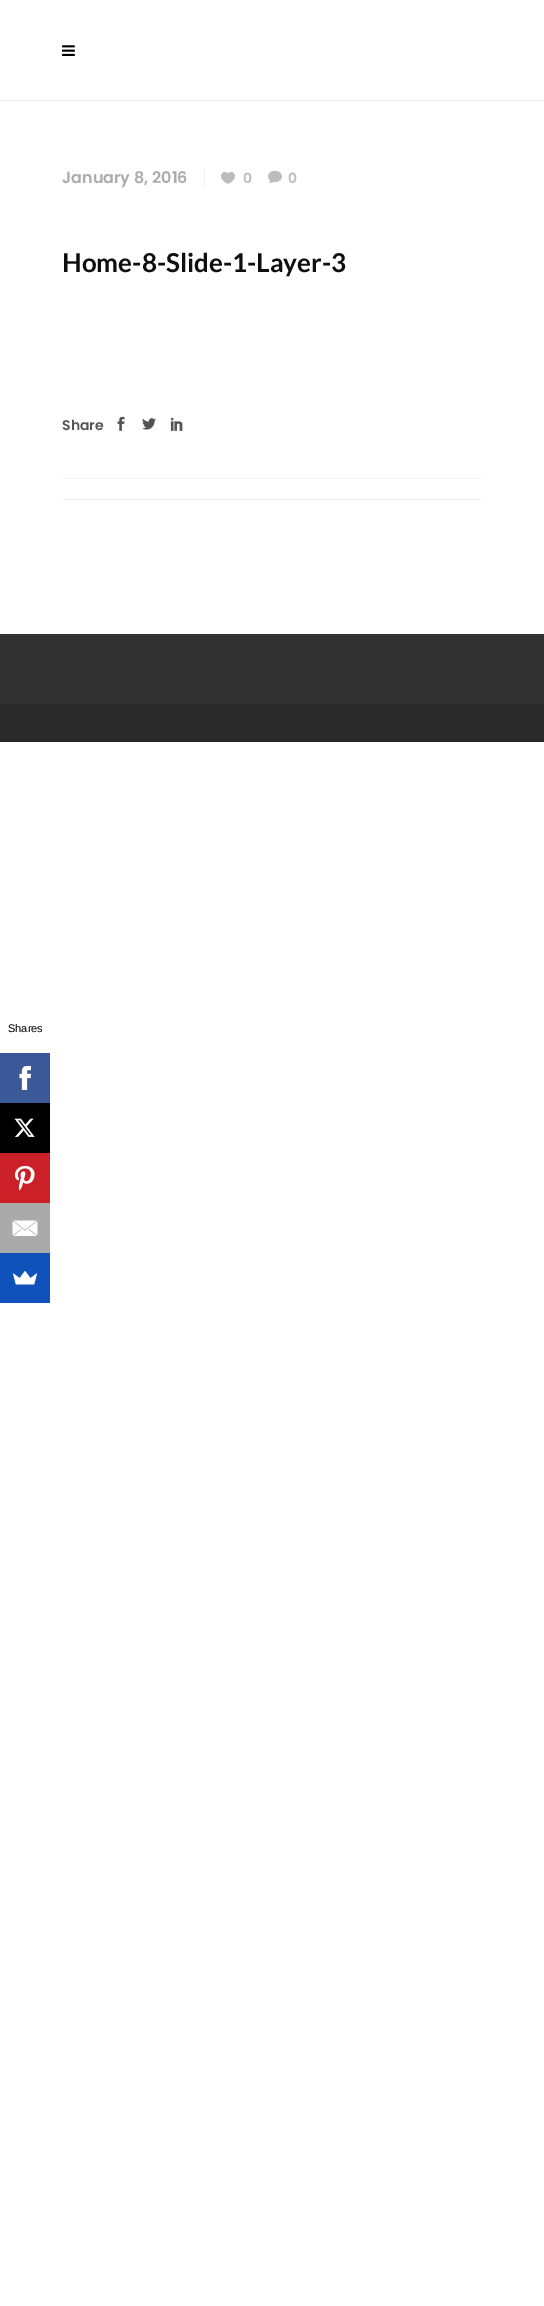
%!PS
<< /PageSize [544 2306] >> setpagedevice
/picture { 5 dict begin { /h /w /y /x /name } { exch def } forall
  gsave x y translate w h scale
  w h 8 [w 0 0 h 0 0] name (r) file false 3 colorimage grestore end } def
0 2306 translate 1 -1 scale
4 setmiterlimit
1 setgray
0 0 544 2306 rectfill
0.949 setgray
0 100 544 1 rectfill
(img1.rgb) 62 45 13 11 picture
204 168 1 20 rectfill
/Poppins-SemiBold [16 0 0 -16 0 0] selectfont
0.671 setgray
62 183 moveto (January 8, 2016) show
(img2.rgb) 221 171 14 13 picture
/Poppins-SemiBold [14 0 0 -14 0 0] selectfont
0.737 setgray
243 183 moveto (0) show
(img3.rgb) 268 170 14 13 picture
288 183 moveto (0) show
/Lato-Bold [26 0 0 -26 0 0] selectfont
0.059 setgray
62 272 moveto (Home-8-Slide-1-Layer-3) show
/Poppins-SemiBold [14 0 0 -14 0 0] selectfont
0.329 setgray
62 430 moveto (Share) show
(img4.rgb) 117 416 8 15 picture
(img5.rgb) 142 418 14 12 picture
(img6.rgb) 170 417 13 14 picture
0.949 setgray
62 478 420 1 rectfill
62 499 420 1 rectfill
0.196 setgray
0 634 544 70 rectfill
0.165 setgray
0 704 544 38 rectfill
/LiberationSans-Regular [11 0 0 -11 0 0] selectfont
0 setgray
8 1032 moveto (Shares) show
0.231 0.349 0.596 setrgbcolor
0 1053 50 50 rectfill
(img7.rgb) 19 1066 12 24 picture
0 setgray
0 1103 50 50 rectfill
(img8.rgb) 14 1118 21 19 picture
0.796 0.125 0.153 setrgbcolor
0 1153 50 50 rectfill
(img9.rgb) 15 1166 20 25 picture
0.667 setgray
0 1203 50 50 rectfill
(img10.rgb) 12 1220 26 16 picture
0.059 0.322 0.729 setrgbcolor
0 1253 50 50 rectfill
(img11.rgb) 13 1271 24 14 picture
showpage
